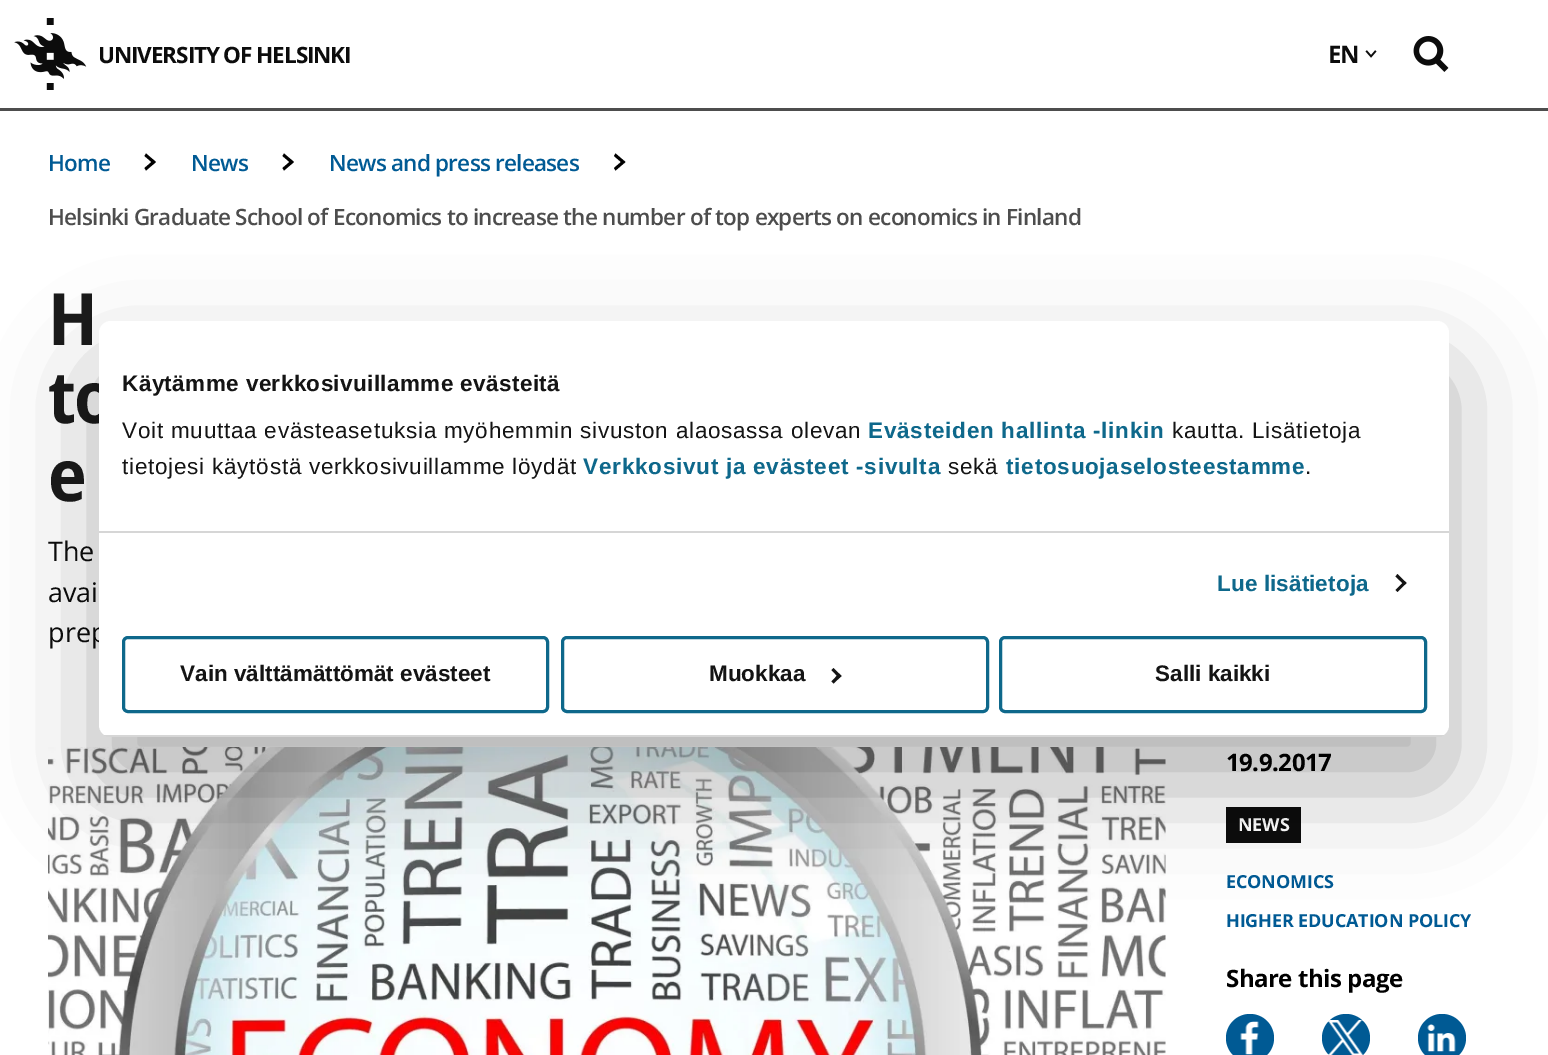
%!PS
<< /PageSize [1548 1055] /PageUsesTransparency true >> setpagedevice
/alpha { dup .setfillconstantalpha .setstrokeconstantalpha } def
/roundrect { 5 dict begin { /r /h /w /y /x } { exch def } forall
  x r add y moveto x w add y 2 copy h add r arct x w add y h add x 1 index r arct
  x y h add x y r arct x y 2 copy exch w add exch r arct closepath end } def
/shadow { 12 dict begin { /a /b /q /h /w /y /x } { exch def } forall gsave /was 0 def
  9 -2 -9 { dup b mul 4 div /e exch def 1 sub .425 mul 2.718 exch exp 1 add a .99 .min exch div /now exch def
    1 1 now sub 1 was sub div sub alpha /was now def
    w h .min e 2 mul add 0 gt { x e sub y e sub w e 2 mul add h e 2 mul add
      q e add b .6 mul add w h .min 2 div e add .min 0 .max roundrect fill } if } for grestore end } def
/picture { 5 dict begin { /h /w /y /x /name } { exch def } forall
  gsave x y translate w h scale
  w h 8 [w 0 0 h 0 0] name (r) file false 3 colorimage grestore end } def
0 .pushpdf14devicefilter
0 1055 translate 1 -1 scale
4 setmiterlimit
1 setgray
0 0 1548 1055 rectfill
0.302 setgray
0 108 1548 3 rectfill
(img1.rgb) 14 18 73 72 picture
/OpenSans-Bold [22.5 0 0 -22.5 0 0] selectfont
0.047 setgray
98 63 moveto -1.1 0 (UNIVERSITY OF HELSINKI) ashow
/OpenSans-Bold [24 0 0 -24 0 0] selectfont
1328 63 moveto -1 0 (EN) ashow
(img2.rgb) 1365 50 12 8 picture
(img3.rgb) 1413 36 36 36 picture
/OpenSans-SemiBold [22.5 0 0 -22.5 0 0] selectfont
0 0.353 0.58 setrgbcolor
48 171 moveto -0.75 0 (Home) ashow
0 setgray
newpath 146 153.5 moveto 144.5 156 lineto 151.5 162 lineto 144.5 168 lineto 146 170.5 lineto 156 162 lineto closepath fill
0 0.353 0.58 setrgbcolor
191 171 moveto -0.75 0 (News) ashow
0 setgray
newpath 284 153.5 moveto 282.5 156 lineto 289.5 162 lineto 282.5 168 lineto 284 170.5 lineto 294 162 lineto closepath fill
0 0.353 0.58 setrgbcolor
329 171 moveto -0.75 0 (News and press releases) ashow
0 setgray
newpath 615.5 153.5 moveto 614 156 lineto 621 162 lineto 614 168 lineto 615.5 170.5 lineto 625.5 162 lineto closepath fill
0.302 setgray
48 225 moveto -0.75 0 (Helsinki Graduate School of Economics to increase the number of top experts on economics in Finland) ashow
/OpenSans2-Bold [72 0 0 -72 0 0] selectfont
0.102 setgray
48 345 moveto -2 0 (H) ashow
48 423 moveto -2 0 (to) ashow
48 501 moveto -2 0 (e) ashow
/OpenSans-Regular [27 0 0 -27 0 0] selectfont
0.047 setgray
48 561 moveto (The) show
48 602 moveto (avai) show
48 642 moveto (prep) show
(img4.rgb) 48 747 1118 308 picture
/OpenSans-Bold [24 0 0 -24 0 0] selectfont
0 setgray
1226 771 moveto -0.5 0 (19.9.2017) ashow
0.047 setgray
1226 807 75 36 rectfill
/OpenSans-Bold [18 0 0 -18 0 0] selectfont
1 setgray
1238 831 moveto -0.15 0 (NEWS) ashow
0 0.353 0.58 setrgbcolor
1226 888 moveto -0.15 0 (ECONOMICS) ashow
1226 927 moveto -0.15 0 (HIGHER EDUCATION POLICY) ashow
/OpenSans-Bold [24 0 0 -24 0 0] selectfont
0 setgray
1226 987 moveto -0.5 0 (Share this page) ashow
0 0.353 0.58 setrgbcolor
newpath 1250 1038 24 0 360 arc closepath fill
(img5.rgb) 1240 1021 19 34 picture
newpath 1346 1038 24 0 360 arc closepath fill
(img6.rgb) 1328 1020 35 35 picture
newpath 1442 1038 24 0 360 arc closepath fill
(img7.rgb) 1427 1024 29 28 picture
0 setgray
99 369 1350 416 12 51 0.3 shadow
1 setgray
99 321 1350 416 12 roundrect fill
0.839 setgray
99 531 1350 2 rectfill
/LiberationSans-Bold [22.5 0 0 -22.5 0 0] selectfont
0.078 setgray
122 391 moveto 0.4 0 (Käytämme verkkosivuillamme evästeitä) ashow
/LiberationSans-Regular [22.5 0 0 -22.5 0 0] selectfont
122 438 moveto 0.75 0 (Voit muuttaa evästeasetuksia myöhemmin sivuston alaosassa olevan) ashow
/LiberationSans-Bold [22.5 0 0 -22.5 0 0] selectfont
0.055 0.408 0.545 setrgbcolor
868 438 moveto 0.75 0 (Evästeiden hallinta -linkin) ashow
/LiberationSans-Regular [22.5 0 0 -22.5 0 0] selectfont
0.078 setgray
1172 438 moveto 0.75 0 (kautta. Lisätietoja) ashow
122 474 moveto 0.75 0 (tietojesi käytöstä verkkosivuillamme löydät) ashow
/LiberationSans-Bold [22.5 0 0 -22.5 0 0] selectfont
0.055 0.408 0.545 setrgbcolor
583 474 moveto 0.75 0 (Verkkosivut ja evästeet -sivulta) ashow
/LiberationSans-Regular [22.5 0 0 -22.5 0 0] selectfont
0.078 setgray
948 474 moveto 0.75 0 (sekä) ashow
/LiberationSans-Bold [22.5 0 0 -22.5 0 0] selectfont
0.055 0.408 0.545 setrgbcolor
1006 474 moveto 0.75 0 (tietosuojaselosteestamme) ashow
/LiberationSans-Regular [22.5 0 0 -22.5 0 0] selectfont
0.078 setgray
1305 474 moveto 0.75 0 (.) ashow
/LiberationSans-Bold [22.5 0 0 -22.5 0 0] selectfont
0.055 0.408 0.545 setrgbcolor
1217 591 moveto 0.1 0 (Lue lisätietoja) ashow
0.078 setgray
newpath 1397.5 574 moveto 1406.5 583 lineto 1404.5 585 lineto 1395.5 576.5 lineto closepath fill
newpath 1404.5 581 moveto 1406.5 583 lineto 1397.5 592 lineto 1395.5 590 lineto closepath fill
gsave
99 321 1350 416 12 roundrect clip newpath
0.839 setgray
99 735 1350 2 rectfill
grestore
0.055 0.408 0.545 setrgbcolor
3 setlinewidth
123.5 637.5 424 74 4.5 roundrect stroke
0.078 setgray
180 681 moveto (Vain välttämättömät evästeet) show
0.055 0.408 0.545 setrgbcolor
562.5 637.5 425 74 4.5 roundrect stroke
0.078 setgray
709 681 moveto (Muokkaa) show
newpath 833.5 668 moveto 841.5 676 lineto 839 678 lineto 831.5 670 lineto closepath fill
newpath 839 673.5 moveto 841.5 676 lineto 833.5 683.5 lineto 831.5 681.5 lineto closepath fill
0.055 0.408 0.545 setrgbcolor
1000.5 637.5 425 74 4.5 roundrect stroke
0.078 setgray
1155 681 moveto (Salli kaikki) show
.poppdf14devicefilter showpage
